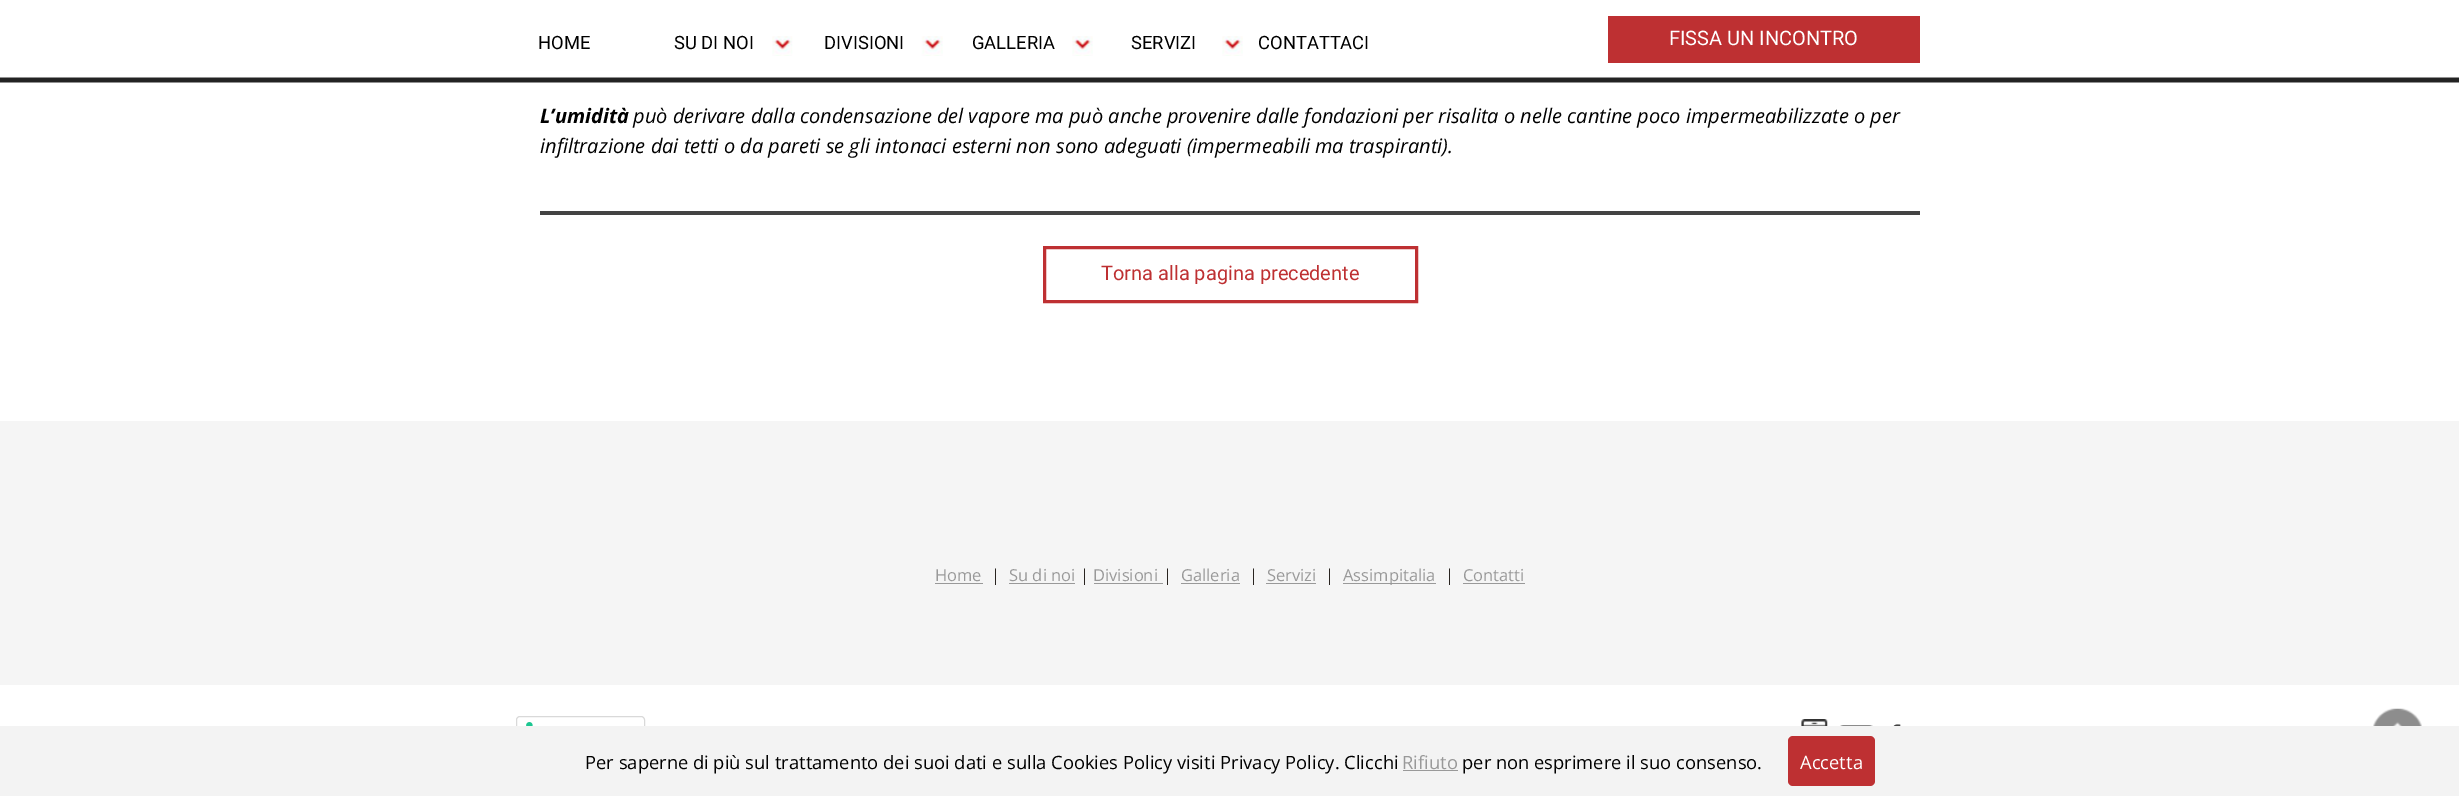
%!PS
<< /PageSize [2459 796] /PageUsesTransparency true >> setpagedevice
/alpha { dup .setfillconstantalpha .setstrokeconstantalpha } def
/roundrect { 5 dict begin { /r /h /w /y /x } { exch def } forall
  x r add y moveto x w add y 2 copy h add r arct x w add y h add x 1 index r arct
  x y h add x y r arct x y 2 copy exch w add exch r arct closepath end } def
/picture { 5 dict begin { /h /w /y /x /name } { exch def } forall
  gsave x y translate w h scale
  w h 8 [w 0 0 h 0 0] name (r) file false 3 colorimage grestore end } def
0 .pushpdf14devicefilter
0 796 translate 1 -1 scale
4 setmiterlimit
1 setgray
0 0 2459 796 rectfill
(img1.rgb) 0 0 2459 83 picture
/Roboto-Regular [18.35 0 0 -18.35 0 0] selectfont
0 setgray
538 49 moveto (HOME) show
674 49 moveto (SU DI NOI) show
(img2.rgb) 772 36 21 20 picture
(img3.rgb) 792 36 151 20 picture
824 49 moveto (DIVISIONI) show
972 49 moveto (GALLERIA) show
(img2.rgb) 1072 36 21 20 picture
1131 49 moveto (SERVIZI) show
(img2.rgb) 1222 36 21 20 picture
1258 49 moveto (CONTATTACI) show
0.745 0.188 0.196 setrgbcolor
1608 16 312 47 rectfill
/Roboto-Regular [20 0 0 -20 0 0] selectfont
1 setgray
1669 45 moveto (FISSA UN INCONTRO) show
/OpenSans-BoldItalic [20 0 0 -20 0 0] selectfont
0 setgray
540 123 moveto (L’umidità) show
/OpenSans-Italic [20 0 0 -20 0 0] selectfont
633 123 moveto (può derivare dalla condensazione del vapore ma può anche provenire dalle fondazioni per risalita o nelle cantine poco impermeabilizzate o per) show
540 153 moveto (infiltrazione dai tetti o da pareti se gli intonaci esterni non sono adeguati \(impermeabili ma traspiranti\).) show
0.263 setgray
540 211 1380 4 rectfill
0.745 0.188 0.196 setrgbcolor
3 setlinewidth
1044.5 247.5 372 54 rectstroke
/Roboto-Regular [20 0 0 -20 0 0] selectfont
1101 280 moveto (Torna alla pagina precedente) show
0.961 setgray
0 421 2459 264 rectfill
/OpenSans-Regular [16.5 0 0 -16.5 0 0] selectfont
0.6 setgray
935 581 moveto (Home) show
935 583 48 1 rectfill
0.161 0.141 0.125 setrgbcolor
991 581 moveto (|) show
0.6 setgray
1009 581 moveto (Su di noi) show
1009 583 66 1 rectfill
0.161 0.141 0.125 setrgbcolor
1080 581 moveto (|) show
0.6 setgray
1093 581 moveto (Divisioni) show
1094 583 69 1 rectfill
0.161 0.141 0.125 setrgbcolor
1163 581 moveto (|) show
0.6 setgray
1181 581 moveto (Galleria) show
1181 583 59 1 rectfill
0.161 0.141 0.125 setrgbcolor
1249 581 moveto (|) show
0.6 setgray
1267 581 moveto (Servizi) show
1266 583 50 1 rectfill
0.161 0.141 0.125 setrgbcolor
1325 581 moveto (|) show
0.6 setgray
1343 583 93 1 rectfill
1343 581 moveto (Assimpitalia) show
0.161 0.141 0.125 setrgbcolor
1445 581 moveto (|) show
0.6 setgray
1463 581 moveto (Contatti) show
1463 583 62 1 rectfill
(img4.rgb) 526 722 7 4 picture
0.15 alpha
0 setgray
1 setlinewidth
516.5 716.5 128 27 3.5 roundrect stroke
1 alpha
(img5.rgb) 1801 719 27 7 picture
(img6.rgb) 1840 725 33 1 picture
(img7.rgb) 1893 724 8 2 picture
(img8.rgb) 2373 708 49 18 picture
0.953 setgray
0 726 2459 70 rectfill
/OpenSans-Regular [18.35 0 0 -18.35 0 0] selectfont
0 setgray
585 769 moveto (Per saperne di più sul trattamento dei suoi dati e sulla Cookies Policy visiti Privacy Policy. Clicchi) show
0.6 setgray
1402 769 moveto (Rifiuto) show
1403 770 55 1 rectfill
0 setgray
1462 769 moveto (per non esprimere il suo consenso.) show
0.745 0.188 0.196 setrgbcolor
1788 736 87 50 5 roundrect fill
1 setgray
1800 769 moveto (Accetta) show
.poppdf14devicefilter showpage
